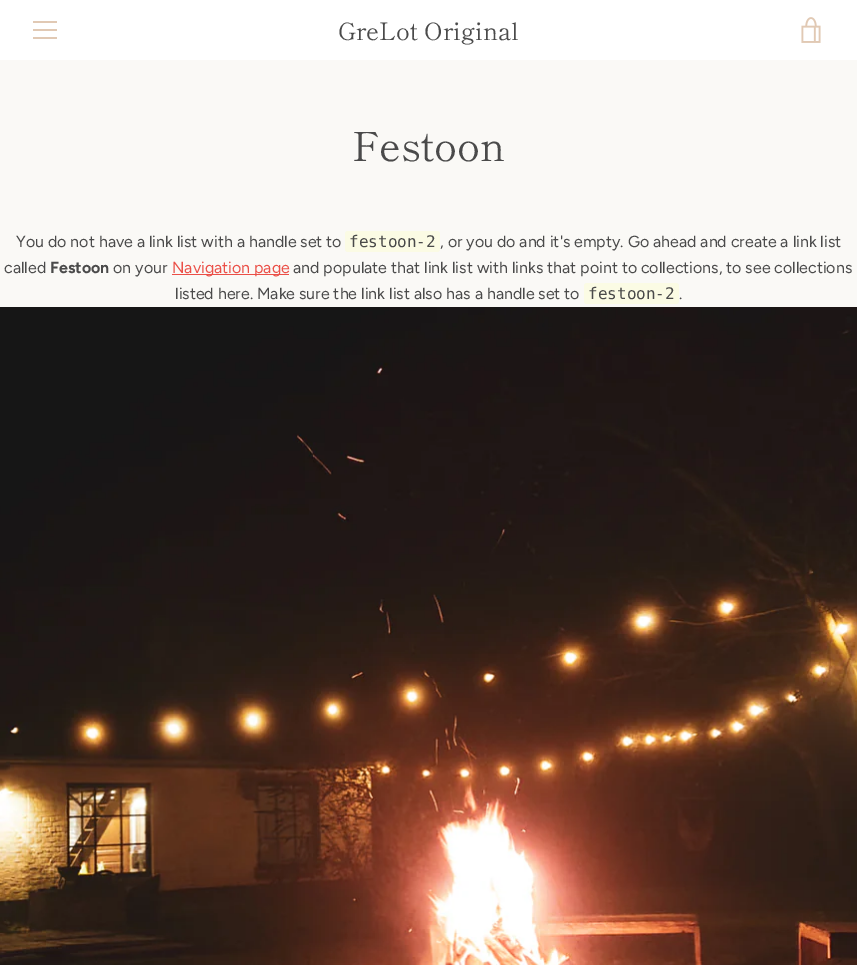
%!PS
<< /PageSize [857 965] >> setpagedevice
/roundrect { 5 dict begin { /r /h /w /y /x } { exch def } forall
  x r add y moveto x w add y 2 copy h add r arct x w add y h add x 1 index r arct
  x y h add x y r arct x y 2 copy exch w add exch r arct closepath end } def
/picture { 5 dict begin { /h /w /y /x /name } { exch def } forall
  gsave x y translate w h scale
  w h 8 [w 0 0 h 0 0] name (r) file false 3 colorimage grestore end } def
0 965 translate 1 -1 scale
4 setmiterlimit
0.98 0.976 0.965 setrgbcolor
0 0 857 965 rectfill
1 setgray
0 0 857 60 rectfill
0.882 0.788 0.706 setrgbcolor
33 21 24 2 rectfill
33 29 24 2 rectfill
33 37 24 2 rectfill
/ShipporiMincho-Regular [24 0 0 -24 0 0] selectfont
0.29 setgray
338 40 moveto (GreLot Original) show
(img1.rgb) 801 17 20 26 picture
/ShipporiMincho-Regular [40 0 0 -40 0 0] selectfont
352 161 moveto (Festoon) show
/Figtree-Regular [16 0 0 -16 0 0] selectfont
16 247 moveto (You do not have a link list with a handle set to) show
0.984 0.984 0.894 setrgbcolor
345 231 95 21 3 roundrect fill
/DejaVuSansMono-Regular [16 0 0 -16 0 0] selectfont
0.29 setgray
349 247 moveto (festoon-2) show
/Figtree-Regular [16 0 0 -16 0 0] selectfont
440 247 moveto (, or you do and it's empty. Go ahead and create a link list) show
4 273 moveto (called) show
/Figtree-Bold [16 0 0 -16 0 0] selectfont
50 273 moveto (Festoon) show
/Figtree-Regular [16 0 0 -16 0 0] selectfont
113 273 moveto (on your) show
0.922 0.31 0.278 setrgbcolor
172 273 moveto (Navigation page) show
172 274 117 1 rectfill
0.29 setgray
293 273 moveto (and populate that link list with links that point to collections, to see collections) show
175 299 moveto (listed here. Make sure the link list also has a handle set to) show
0.984 0.984 0.894 setrgbcolor
584 283 95 21 3 roundrect fill
/DejaVuSansMono-Regular [16 0 0 -16 0 0] selectfont
0.29 setgray
588 299 moveto (festoon-2) show
/Figtree-Regular [16 0 0 -16 0 0] selectfont
679 299 moveto (.) show
(img2.rgb) 0 307 857 658 picture
showpage
